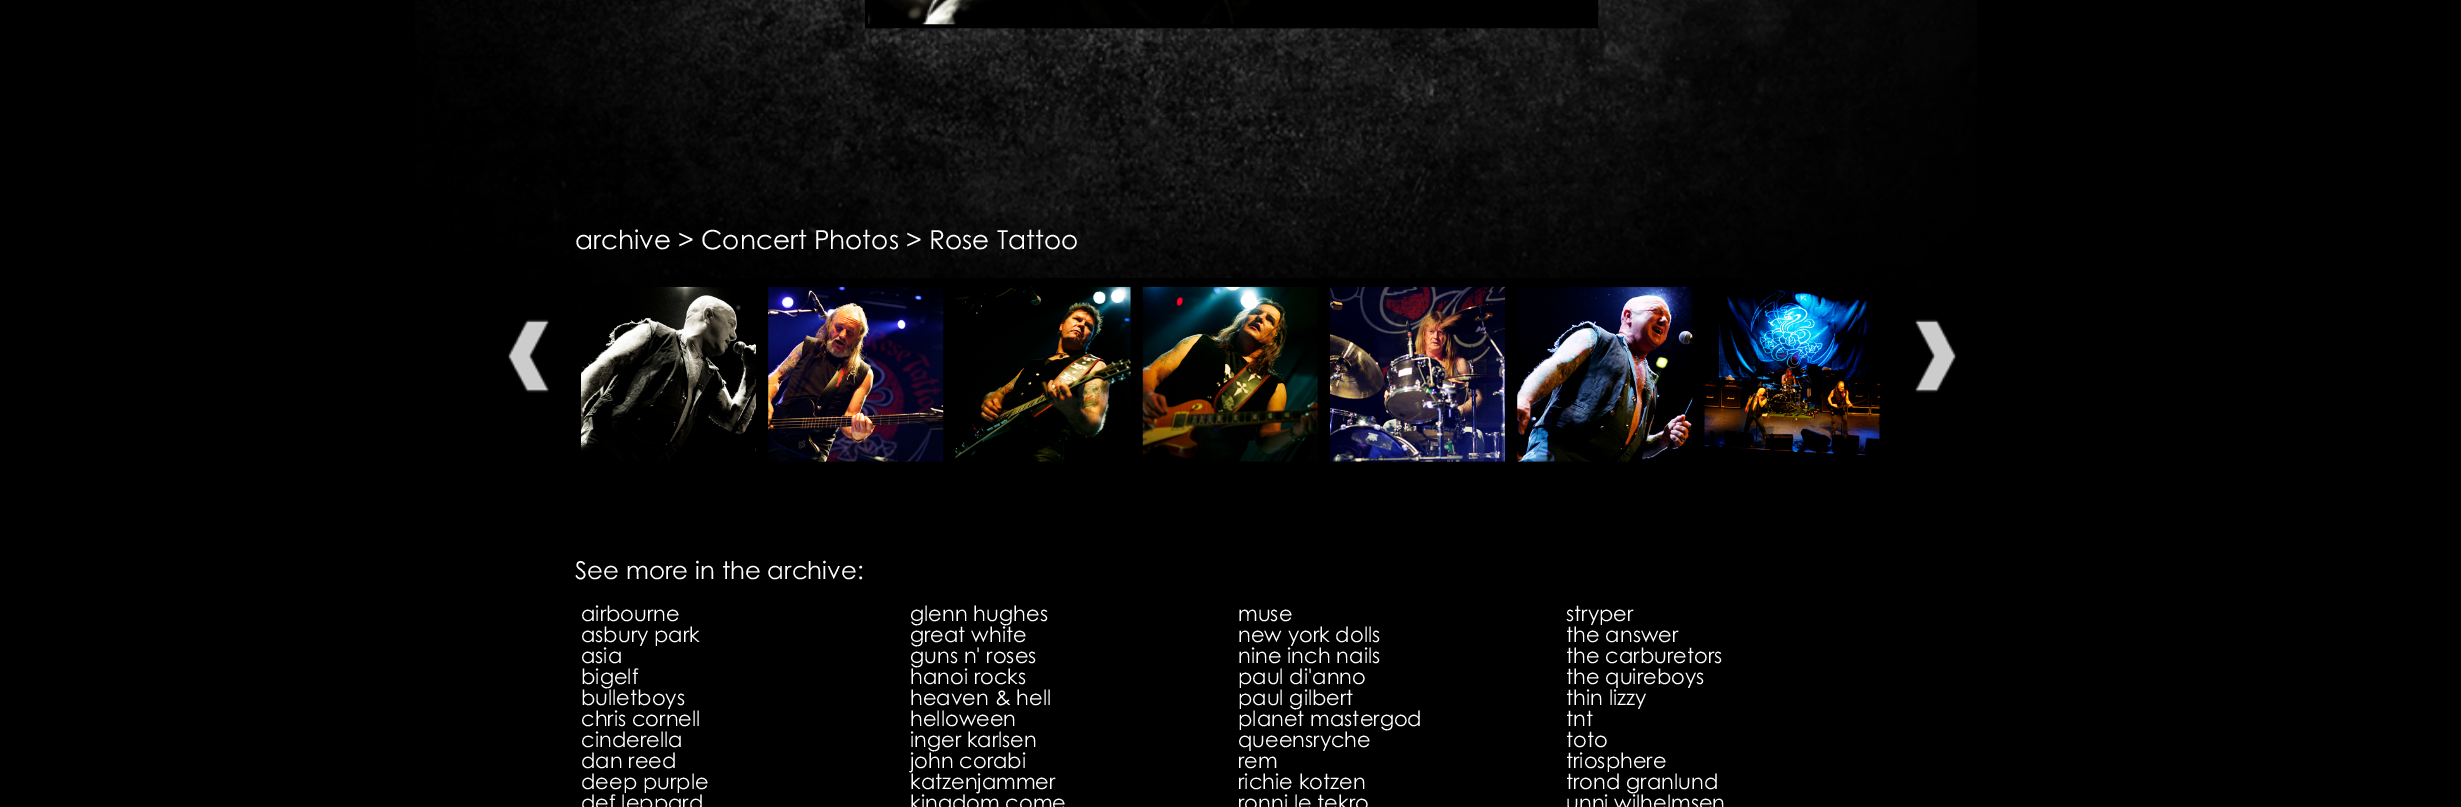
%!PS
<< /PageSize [2461 807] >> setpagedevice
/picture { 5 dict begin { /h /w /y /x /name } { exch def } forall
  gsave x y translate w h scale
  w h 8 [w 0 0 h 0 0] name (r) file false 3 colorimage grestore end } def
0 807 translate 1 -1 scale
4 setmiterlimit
0 setgray
0 0 2461 807 rectfill
(img1.rgb) 415 0 1562 348 picture
4 setlinewidth
867 -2 729 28 rectstroke
(img2.rgb) 868 0 726 25 picture
/CenturyGothic-Regular [26.25 0 0 -26.25 0 0] selectfont
1 setgray
575 249 moveto (archive > Concert Photos > Rose Tattoo) show
0 setgray
692 278 1052 70 rectfill
(img3.rgb) 581 286 175 175 picture
(img4.rgb) 768 286 176 176 picture
(img5.rgb) 955 286 176 176 picture
(img6.rgb) 1142 286 176 176 picture
(img7.rgb) 1330 286 175 176 picture
(img8.rgb) 1517 286 176 176 picture
(img9.rgb) 1704 288 176 173 picture
(img10.rgb) 507 319 43 74 picture
(img11.rgb) 1914 319 43 74 picture
/CenturyGothic-Regular [24.5 0 0 -24.5 0 0] selectfont
1 setgray
575 579 moveto (See more in the archive:) show
/CenturyGothic-Regular [21 0 0 -21 0 0] selectfont
581 621 moveto (airbourne) show
581 642 moveto (asbury park) show
581 663 moveto (asia) show
581 684 moveto (bigelf) show
581 705 moveto (bulletboys) show
581 726 moveto (chris cornell) show
581 747 moveto (cinderella) show
581 768 moveto (dan reed) show
581 789 moveto (deep purple) show
581 810 moveto (def leppard) show
910 621 moveto (glenn hughes) show
910 642 moveto (great white) show
910 663 moveto (guns n' roses) show
910 684 moveto (hanoi rocks) show
910 705 moveto (heaven & hell) show
910 726 moveto (helloween) show
910 747 moveto (inger karlsen) show
910 768 moveto (john corabi) show
910 789 moveto (katzenjammer) show
910 810 moveto (kingdom come) show
1238 621 moveto (muse) show
1238 642 moveto (new york dolls) show
1238 663 moveto (nine inch nails) show
1238 684 moveto (paul di'anno) show
1238 705 moveto (paul gilbert) show
1238 726 moveto (planet mastergod) show
1238 747 moveto (queensryche) show
1238 768 moveto (rem) show
1238 789 moveto (richie kotzen) show
1238 810 moveto (ronni le tekro) show
1566 621 moveto (stryper) show
1566 642 moveto (the answer) show
1566 663 moveto (the carburetors) show
1566 684 moveto (the quireboys) show
1566 705 moveto (thin lizzy) show
1566 726 moveto (tnt) show
1566 747 moveto (toto) show
1566 768 moveto (triosphere) show
1566 789 moveto (trond granlund) show
1566 810 moveto (unni wilhelmsen) show
showpage
